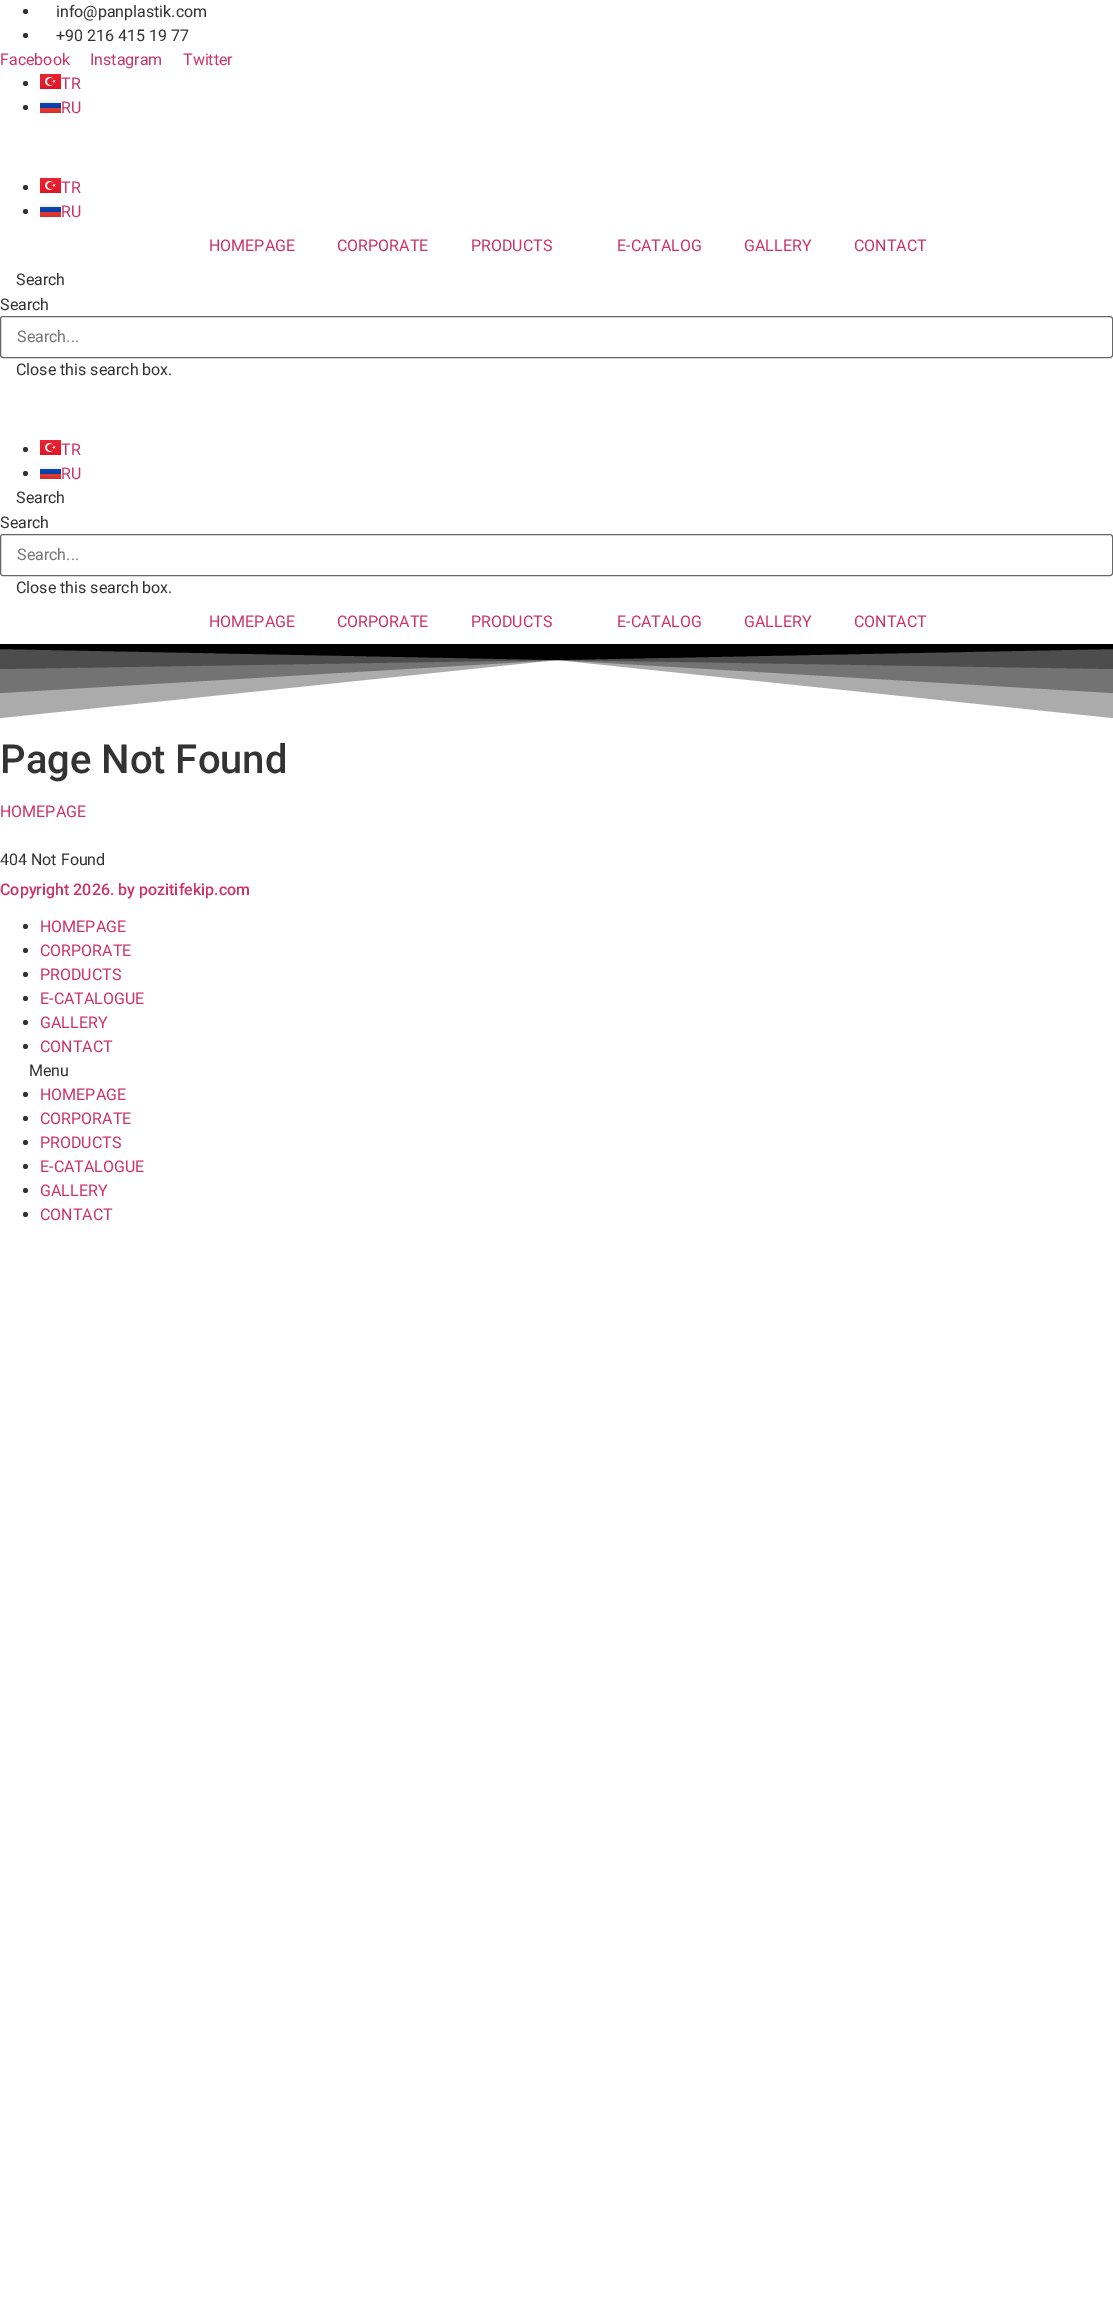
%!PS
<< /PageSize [1113 2300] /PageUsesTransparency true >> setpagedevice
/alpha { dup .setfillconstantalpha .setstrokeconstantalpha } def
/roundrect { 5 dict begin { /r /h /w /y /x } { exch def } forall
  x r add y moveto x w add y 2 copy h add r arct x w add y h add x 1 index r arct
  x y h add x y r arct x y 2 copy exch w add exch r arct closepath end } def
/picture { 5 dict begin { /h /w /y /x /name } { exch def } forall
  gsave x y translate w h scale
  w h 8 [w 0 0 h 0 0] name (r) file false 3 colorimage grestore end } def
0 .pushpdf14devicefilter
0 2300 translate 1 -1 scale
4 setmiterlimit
1 setgray
0 0 1113 2300 rectfill
0.2 setgray
newpath 25.5 11.5 2.5 0 360 arc closepath fill
/Roboto-Regular [16 0 0 -16 0 0] selectfont
56 17 moveto (info@panplastik.com) show
newpath 25.5 35.5 2.5 0 360 arc closepath fill
56 41 moveto (+90 216 415 19 77) show
0.8 0.2 0.4 setrgbcolor
0 65 moveto (Facebook) show
90 65 moveto (Instagram) show
183 65 moveto (Twitter) show
0.2 setgray
newpath 25.5 83.5 2.5 0 360 arc closepath fill
(img1.rgb) 40 74 21 15 picture
0.8 0.2 0.4 setrgbcolor
61 89 moveto (TR) show
0.2 setgray
newpath 25.5 107.5 2.5 0 360 arc closepath fill
0.8 0.2 0.4 setrgbcolor
61 113 moveto (RU) show
gsave newpath 40 103 moveto 61 103 lineto 61 108 lineto 40 108 lineto closepath clip newpath
<< /ShadingType 2 /ColorSpace /DeviceRGB /Coords [51 103 51 108] /Extend [true true] /Function << /FunctionType 2 /Domain [0 1] /C0 [0.047 0.278 0.718] /C1 [0.027 0.239 0.643] /N 1 >> >> shfill grestore
gsave newpath 40 108 moveto 61 108 lineto 61 113 lineto 40 113 lineto closepath clip newpath
<< /ShadingType 2 /ColorSpace /DeviceRGB /Coords [51 108 51 113] /Extend [true true] /Function << /FunctionType 2 /Domain [0 1] /C0 [0.898 0.231 0.208] /C1 [0.827 0.18 0.157] /N 1 >> >> shfill grestore
gsave newpath 40 99 moveto 61 99 lineto 61 103 lineto 40 103 lineto closepath clip newpath
<< /ShadingType 2 /ColorSpace /DeviceRGB /Coords [51 98 51 103] /Extend [true true] /Function << /FunctionType 2 /Domain [0 1] /C0 [1 1 1] /C1 [0.941 0.941 0.941] /N 1 >> >> shfill grestore
0.2 setgray
newpath 25.5 187.5 2.5 0 360 arc closepath fill
(img1.rgb) 40 178 21 15 picture
0.8 0.2 0.4 setrgbcolor
61 193 moveto (TR) show
0.2 setgray
newpath 25.5 211.5 2.5 0 360 arc closepath fill
0.8 0.2 0.4 setrgbcolor
61 217 moveto (RU) show
gsave newpath 40 207 moveto 61 207 lineto 61 212 lineto 40 212 lineto closepath clip newpath
<< /ShadingType 2 /ColorSpace /DeviceRGB /Coords [51 207 51 212] /Extend [true true] /Function << /FunctionType 2 /Domain [0 1] /C0 [0.047 0.278 0.718] /C1 [0.027 0.239 0.643] /N 1 >> >> shfill grestore
gsave newpath 40 212 moveto 61 212 lineto 61 217 lineto 40 217 lineto closepath clip newpath
<< /ShadingType 2 /ColorSpace /DeviceRGB /Coords [51 212 51 217] /Extend [true true] /Function << /FunctionType 2 /Domain [0 1] /C0 [0.898 0.231 0.208] /C1 [0.827 0.18 0.157] /N 1 >> >> shfill grestore
gsave newpath 40 203 moveto 61 203 lineto 61 207 lineto 40 207 lineto closepath clip newpath
<< /ShadingType 2 /ColorSpace /DeviceRGB /Coords [51 202 51 207] /Extend [true true] /Function << /FunctionType 2 /Domain [0 1] /C0 [1 1 1] /C1 [0.941 0.941 0.941] /N 1 >> >> shfill grestore
209 251 moveto (HOMEPAGE) show
337 251 moveto (CORPORATE) show
471 251 moveto (PRODUCTS) show
617 251 moveto (E-CATALOG) show
744 251 moveto (GALLERY) show
854 251 moveto (CONTACT) show
0.2 setgray
16 285 moveto (Search) show
0 310 moveto (Search) show
0.4 setgray
0.5 316.5 1112 41 2.5 roundrect stroke
0.459 setgray
17 342 moveto (Search...) show
0.2 setgray
16 375 moveto (Close this search box.) show
newpath 25.5 449.5 2.5 0 360 arc closepath fill
(img1.rgb) 40 440 21 15 picture
0.8 0.2 0.4 setrgbcolor
61 455 moveto (TR) show
0.2 setgray
newpath 25.5 473.5 2.5 0 360 arc closepath fill
0.8 0.2 0.4 setrgbcolor
61 479 moveto (RU) show
gsave newpath 40 469 moveto 61 469 lineto 61 474 lineto 40 474 lineto closepath clip newpath
<< /ShadingType 2 /ColorSpace /DeviceRGB /Coords [51 469 51 474] /Extend [true true] /Function << /FunctionType 2 /Domain [0 1] /C0 [0.047 0.278 0.718] /C1 [0.027 0.239 0.643] /N 1 >> >> shfill grestore
gsave newpath 40 474 moveto 61 474 lineto 61 479 lineto 40 479 lineto closepath clip newpath
<< /ShadingType 2 /ColorSpace /DeviceRGB /Coords [51 474 51 479] /Extend [true true] /Function << /FunctionType 2 /Domain [0 1] /C0 [0.898 0.231 0.208] /C1 [0.827 0.18 0.157] /N 1 >> >> shfill grestore
gsave newpath 40 465 moveto 61 465 lineto 61 469 lineto 40 469 lineto closepath clip newpath
<< /ShadingType 2 /ColorSpace /DeviceRGB /Coords [51 464 51 469] /Extend [true true] /Function << /FunctionType 2 /Domain [0 1] /C0 [1 1 1] /C1 [0.941 0.941 0.941] /N 1 >> >> shfill grestore
0.2 setgray
16 503 moveto (Search) show
0 528 moveto (Search) show
0.4 setgray
0.5 534.5 1112 41 2.5 roundrect stroke
0.459 setgray
17 560 moveto (Search...) show
0.2 setgray
16 593 moveto (Close this search box.) show
0.8 0.2 0.4 setrgbcolor
209 627 moveto (HOMEPAGE) show
337 627 moveto (CORPORATE) show
471 627 moveto (PRODUCTS) show
617 627 moveto (E-CATALOG) show
744 627 moveto (GALLERY) show
854 627 moveto (CONTACT) show
0.671 setgray
newpath 0 644 moveto 0 718 lineto 557 660 lineto 1113 718 lineto 1113 644 lineto closepath fill
0.33 alpha
0 setgray
newpath 0 644 moveto 0 693 lineto 557 660 lineto 1113 693 lineto 1113 644 lineto closepath fill
1 alpha
0.302 setgray
newpath 0 644 moveto 0 669 lineto 557 660 lineto 1113 669 lineto 1113 644 lineto closepath fill
0 setgray
newpath 0 644 moveto 0 649 lineto 557 660 lineto 1113 649 lineto 1113 644 lineto closepath fill
/Roboto-Medium [40 0 0 -40 0 0] selectfont
0.2 setgray
0 773 moveto (Page Not Found) show
/Roboto-Regular [16 0 0 -16 0 0] selectfont
0.8 0.2 0.4 setrgbcolor
0 817 moveto (HOMEPAGE) show
0.2 setgray
0 865 moveto (404 Not Found) show
/Roboto-Medium [16 0 0 -16 0 0] selectfont
0.8 0.2 0.4 setrgbcolor
0 895 moveto (Copyright 2026. by pozitifekip.com) show
0.2 setgray
newpath 25.5 926.5 2.5 0 360 arc closepath fill
/Roboto-Regular [16 0 0 -16 0 0] selectfont
0.8 0.2 0.4 setrgbcolor
40 932 moveto (HOMEPAGE) show
0.2 setgray
newpath 25.5 950.5 2.5 0 360 arc closepath fill
0.8 0.2 0.4 setrgbcolor
40 956 moveto (CORPORATE) show
0.2 setgray
newpath 25.5 974.5 2.5 0 360 arc closepath fill
0.8 0.2 0.4 setrgbcolor
40 980 moveto (PRODUCTS) show
0.2 setgray
newpath 25.5 998.5 2.5 0 360 arc closepath fill
0.8 0.2 0.4 setrgbcolor
40 1004 moveto (E-CATALOGUE) show
0.2 setgray
newpath 25.5 1022.5 2.5 0 360 arc closepath fill
0.8 0.2 0.4 setrgbcolor
40 1028 moveto (GALLERY) show
0.2 setgray
newpath 25.5 1046.5 2.5 0 360 arc closepath fill
0.8 0.2 0.4 setrgbcolor
40 1052 moveto (CONTACT) show
0.2 setgray
29 1076 moveto (Menu) show
newpath 25.5 1094.5 2.5 0 360 arc closepath fill
0.8 0.2 0.4 setrgbcolor
40 1100 moveto (HOMEPAGE) show
0.2 setgray
newpath 25.5 1118.5 2.5 0 360 arc closepath fill
0.8 0.2 0.4 setrgbcolor
40 1124 moveto (CORPORATE) show
0.2 setgray
newpath 25.5 1142.5 2.5 0 360 arc closepath fill
0.8 0.2 0.4 setrgbcolor
40 1148 moveto (PRODUCTS) show
0.2 setgray
newpath 25.5 1166.5 2.5 0 360 arc closepath fill
0.8 0.2 0.4 setrgbcolor
40 1172 moveto (E-CATALOGUE) show
0.2 setgray
newpath 25.5 1190.5 2.5 0 360 arc closepath fill
0.8 0.2 0.4 setrgbcolor
40 1196 moveto (GALLERY) show
0.2 setgray
newpath 25.5 1214.5 2.5 0 360 arc closepath fill
0.8 0.2 0.4 setrgbcolor
40 1220 moveto (CONTACT) show
.poppdf14devicefilter showpage
